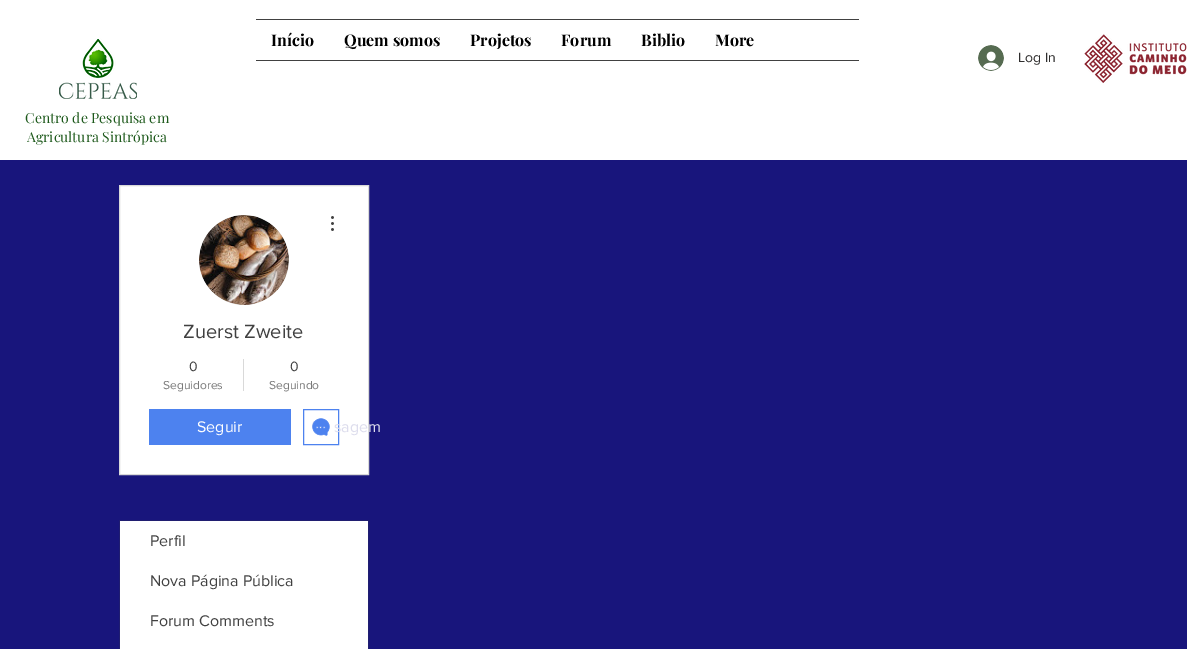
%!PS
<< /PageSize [1187 649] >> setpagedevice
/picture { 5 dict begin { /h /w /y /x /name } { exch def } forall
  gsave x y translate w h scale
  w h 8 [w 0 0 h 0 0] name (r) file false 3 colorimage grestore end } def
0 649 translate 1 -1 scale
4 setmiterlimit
0.094 0.082 0.486 setrgbcolor
0 0 1187 649 rectfill
1 setgray
0 0 1187 160 rectfill
0.255 setgray
256 19 603 1 rectfill
256 60 603 1 rectfill
/PlayfairDisplay-Bold [16 0 0 -16 0 0] selectfont
0 setgray
271 46 moveto (Início) show
344 46 moveto (Quem somos) show
470 46 moveto (Projetos) show
561 46 moveto (Forum) show
641 46 moveto (Biblio) show
715 46 moveto (More) show
(img1.rgb) 59 38 78 61 picture
(img2.rgb) 978 45 26 26 picture
/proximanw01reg-Regular [14 0 0 -14 0 0] selectfont
0.184 0.18 0.18 setrgbcolor
1018 62 moveto (Log In) show
(img3.rgb) 1084 34 103 49 picture
/PlayfairDisplay-Regular [14 0 0 -14 0 0] selectfont
0.114 0.349 0.106 setrgbcolor
25 123 moveto (Centro de Pesquisa em) show
27 142 moveto (Agricultura Sintrópica) show
1 setgray
newpath 119.5 185.5 moveto 368.5 185.5 lineto 368.5 474.5 lineto 119.5 474.5 lineto closepath gsave fill grestore
0.851 setgray
stroke
0.847 setgray
newpath 244 260 45 0 360 arc closepath fill
(img4.rgb) 199 215 90 90 picture
(img5.rgb) 331 216 3 15 picture
/proximanw01reg-Regular [20 0 0 -20 0 0] selectfont
0.255 setgray
183 338 moveto (Zuerst Zweite) show
/proximanw01reg-Regular [14 0 0 -14 0 0] selectfont
189 371 moveto (0) show
/proximanw01reg-Regular [12 0 0 -12 0 0] selectfont
0.478 setgray
163 389 moveto (Seguidores) show
0.851 setgray
243 359 1 32 rectfill
/proximanw01reg-Regular [14 0 0 -14 0 0] selectfont
0.255 setgray
290 371 moveto (0) show
/proximanw01reg-Regular [12 0 0 -12 0 0] selectfont
0.478 setgray
269 389 moveto (Seguindo) show
0.302 0.51 0.937 setrgbcolor
149 409 142 36 rectfill
/proximanw01reg-Regular [16 0 0 -16 0 0] selectfont
1 setgray
197 432 moveto (Seguir) show
0.302 0.51 0.937 setrgbcolor
303.5 409.5 35 35 rectstroke
(img6.rgb) 312 418 18 18 picture
0.867 0.867 0.929 setrgbcolor
334 432 moveto (sagem) show
0.125 0.118 0.439 setrgbcolor
119.5 520.5 249 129 rectstroke
1 setgray
120 521 248 128 rectfill
0.255 setgray
150 546 moveto (Perfil) show
150 586 moveto (Nova Página Pública) show
150 626 moveto (Forum Comments) show
showpage
